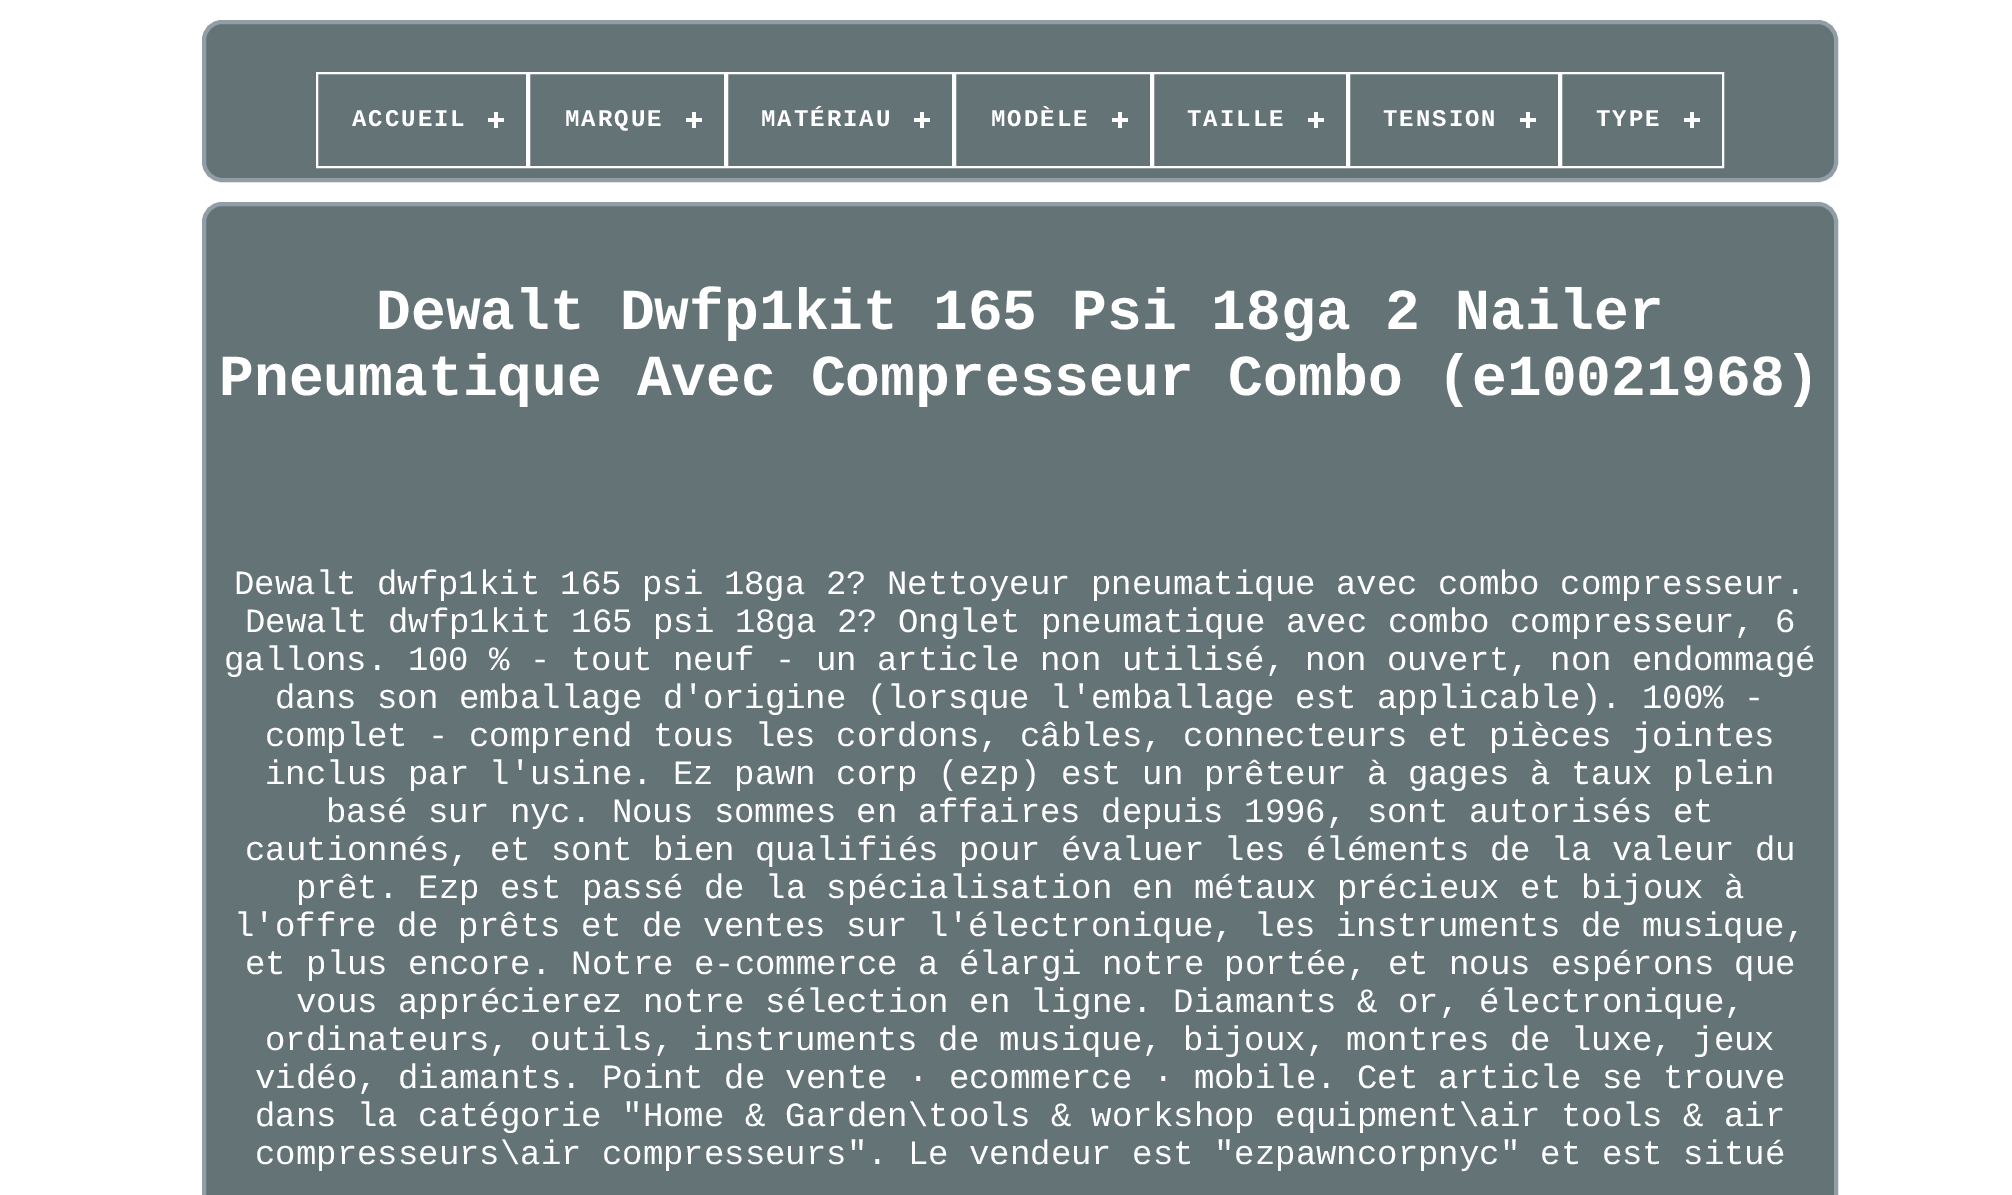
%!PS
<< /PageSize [2012 1195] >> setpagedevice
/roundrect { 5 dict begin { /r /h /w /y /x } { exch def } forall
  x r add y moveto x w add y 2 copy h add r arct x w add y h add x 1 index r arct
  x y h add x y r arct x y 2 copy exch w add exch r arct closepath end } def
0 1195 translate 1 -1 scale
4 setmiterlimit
1 setgray
0 0 2012 1195 rectfill
0.392 0.451 0.463 setrgbcolor
204 22 1632 158 18 roundrect gsave fill grestore
0.569 0.62 0.651 setrgbcolor
4 setlinewidth
stroke
1 setgray
2 setlinewidth
317 73 210 94 rectstroke
/LiberationMono-Bold [24 0 0 -24 0 0] selectfont
352 126 moveto 2 0 (ACCUEIL) ashow
494 112 4 16 rectfill
488 118 16 4 rectfill
529 73 196 94 rectstroke
565 126 moveto 2 0 (MARQUE) ashow
692 112 4 16 rectfill
686 118 16 4 rectfill
727 73 226 94 rectstroke
761 126 moveto 2 0 (MATÉRIAU) ashow
920 112 4 16 rectfill
914 118 16 4 rectfill
955 73 196 94 rectstroke
991 126 moveto 2 0 (MODÈLE) ashow
1118 112 4 16 rectfill
1112 118 16 4 rectfill
1153 73 194 94 rectstroke
1187 126 moveto 2 0 (TAILLE) ashow
1314 112 4 16 rectfill
1308 118 16 4 rectfill
1349 73 210 94 rectstroke
1383 126 moveto 2 0 (TENSION) ashow
1526 112 4 16 rectfill
1520 118 16 4 rectfill
1561 73 162 94 rectstroke
1596 126 moveto 2 0 (TYPE) ashow
1690 112 4 16 rectfill
1684 118 16 4 rectfill
0.392 0.451 0.463 setrgbcolor
204 204 1632 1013 18 roundrect gsave fill grestore
0.569 0.62 0.651 setrgbcolor
4 setlinewidth
stroke
/LiberationMono-Bold [58 0 0 -58 0 0] selectfont
1 setgray
376 329 moveto (Dewalt Dwfp1kit 165 Psi 18ga 2 Nailer) show
219 395 moveto (Pneumatique Avec Compresseur Combo \(e10021968\)) show
/LiberationMono-Regular [34 0 0 -34 0 0] selectfont
234 594 moveto (Dewalt dwfp1kit 165 psi 18ga 2? Nettoyeur pneumatique avec combo compresseur.) show
245 632 moveto (Dewalt dwfp1kit 165 psi 18ga 2? Onglet pneumatique avec combo compresseur, 6) show
224 670 moveto (gallons. 100 % - tout neuf - un article non utilisé, non ouvert, non endommagé) show
275 708 moveto (dans son emballage d'origine \(lorsque l'emballage est applicable\). 100% -) show
265 746 moveto (complet - comprend tous les cordons, câbles, connecteurs et pièces jointes) show
265 784 moveto (inclus par l'usine. Ez pawn corp \(ezp\) est un prêteur à gages à taux plein) show
326 822 moveto (basé sur nyc. Nous sommes en affaires depuis 1996, sont autorisés et) show
245 860 moveto (cautionnés, et sont bien qualifiés pour évaluer les éléments de la valeur du) show
296 898 moveto (prêt. Ezp est passé de la spécialisation en métaux précieux et bijoux à) show
234 936 moveto (l'offre de prêts et de ventes sur l'électronique, les instruments de musique,) show
245 974 moveto (et plus encore. Notre e-commerce a élargi notre portée, et nous espérons que) show
296 1012 moveto (vous apprécierez notre sélection en ligne. Diamants & or, électronique,) show
265 1050 moveto (ordinateurs, outils, instruments de musique, bijoux, montres de luxe, jeux) show
255 1088 moveto (vidéo, diamants. Point de vente · ecommerce · mobile. Cet article se trouve) show
255 1126 moveto (dans la catégorie "Home & Garden\\tools & workshop equipment\\air tools & air) show
255 1164 moveto (compresseurs\\air compresseurs". Le vendeur est "ezpawncorpnyc" et est situé) show
showpage
